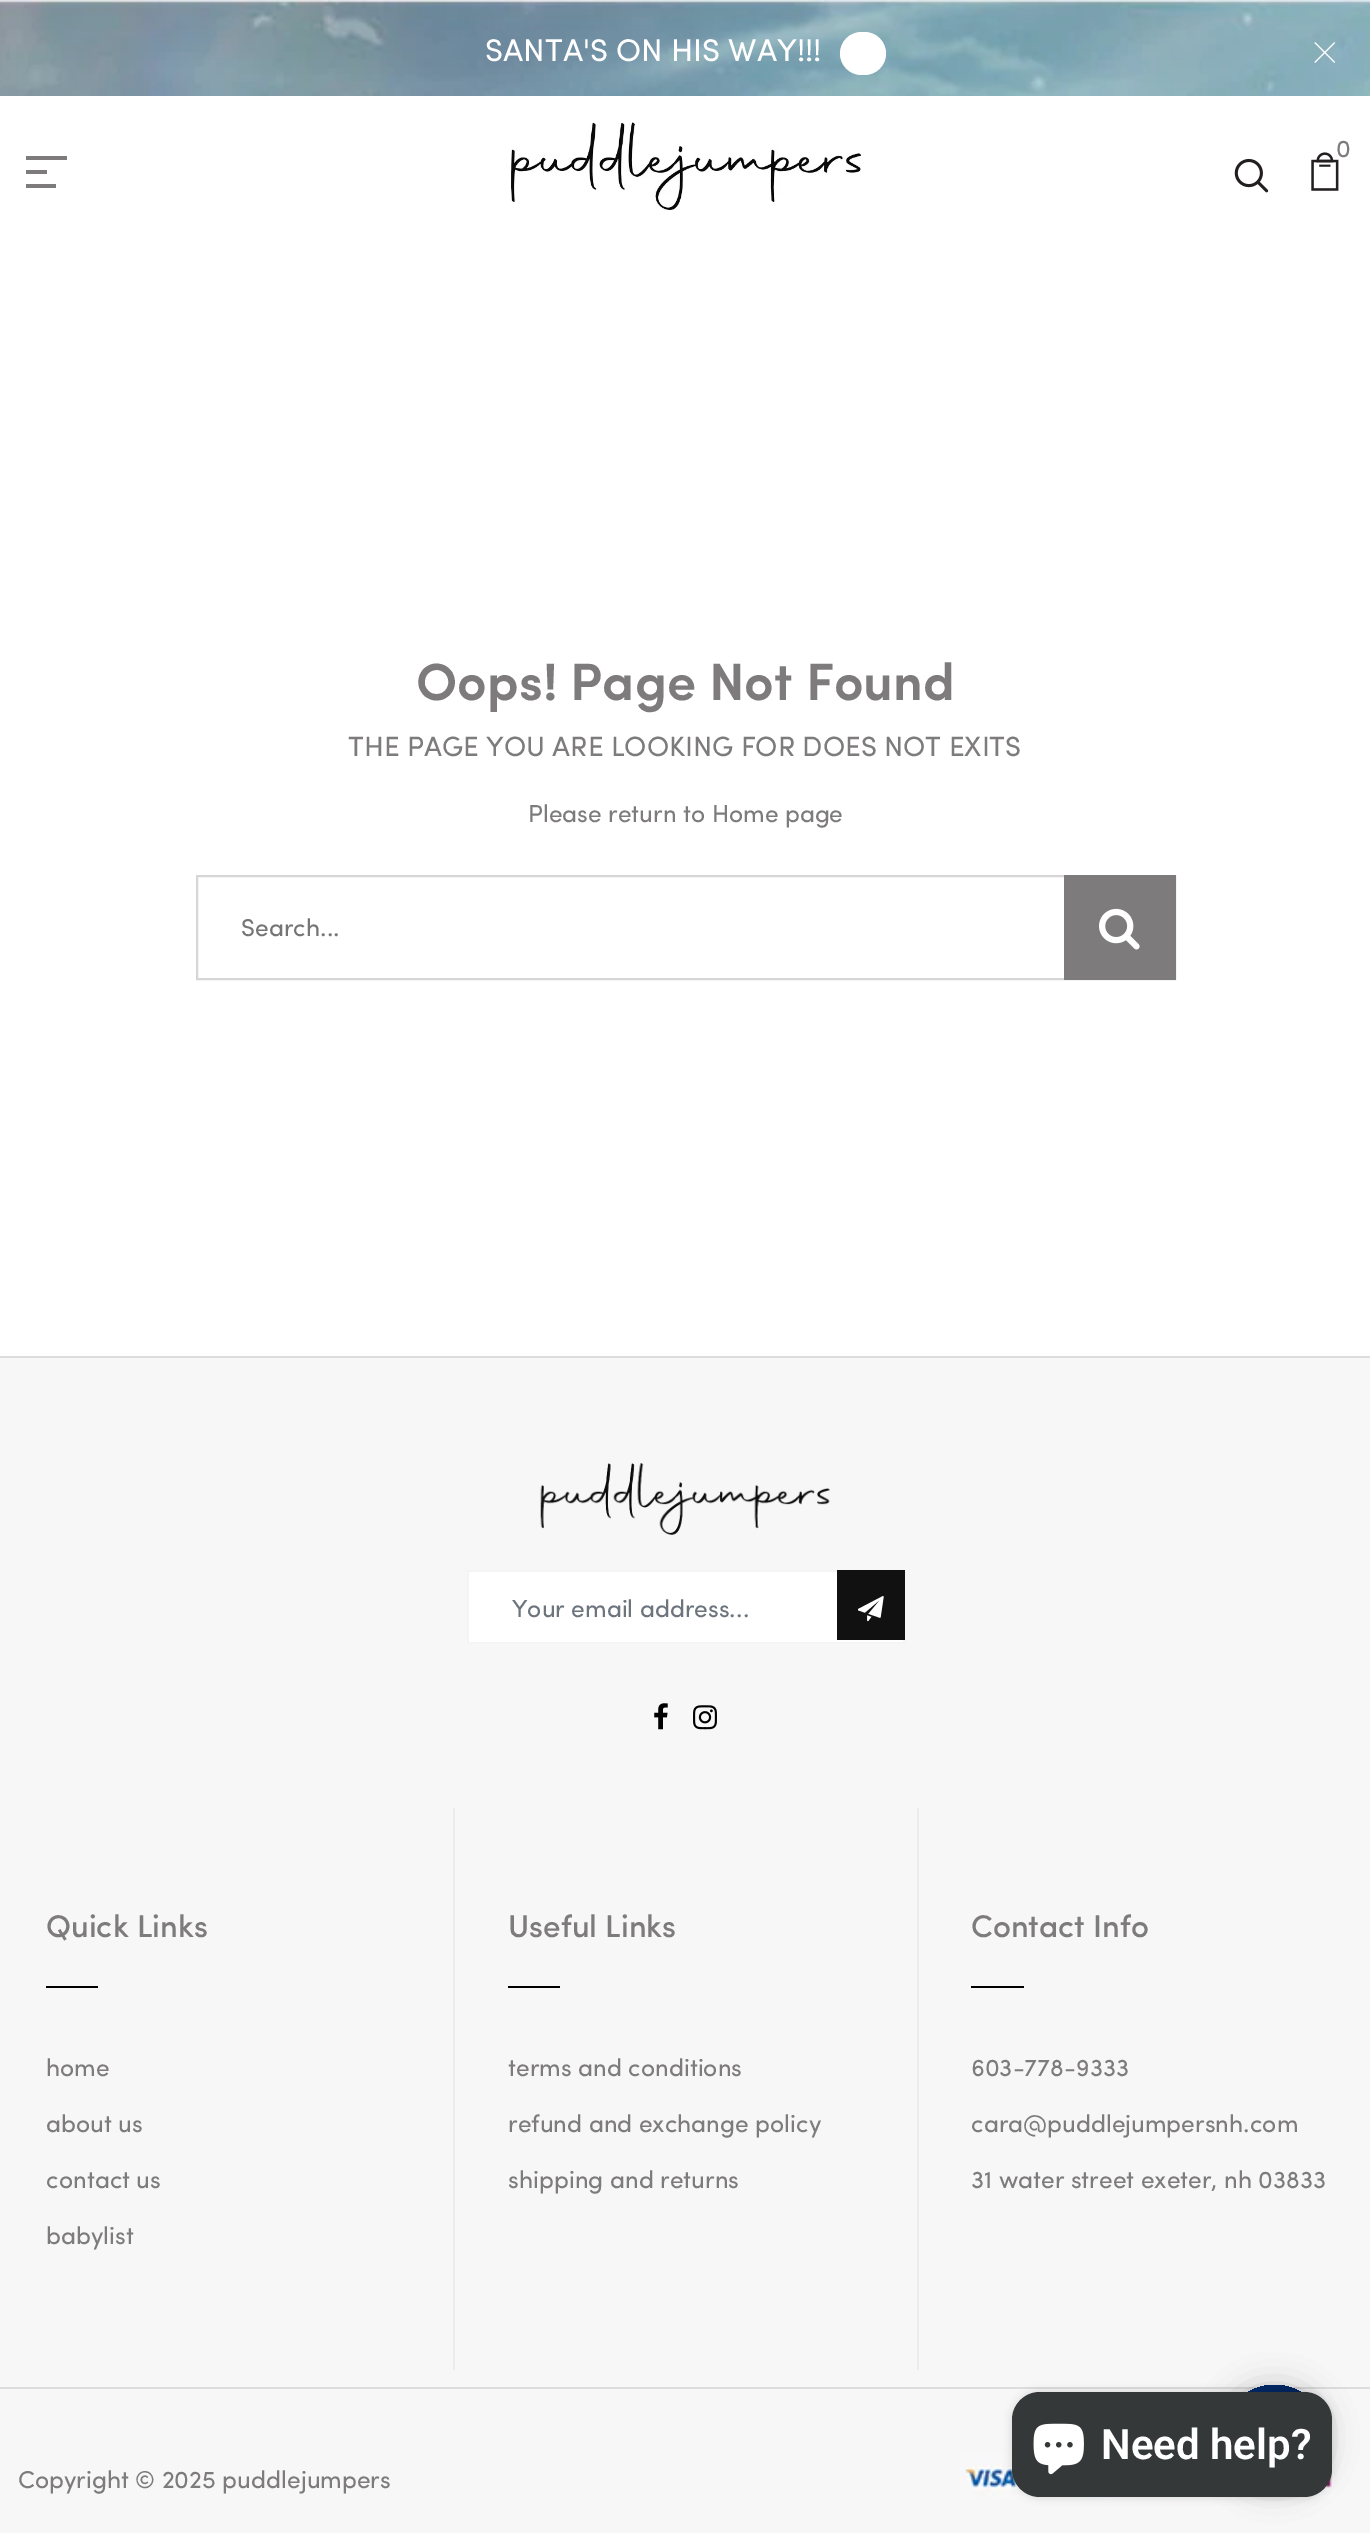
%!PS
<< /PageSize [1370 2533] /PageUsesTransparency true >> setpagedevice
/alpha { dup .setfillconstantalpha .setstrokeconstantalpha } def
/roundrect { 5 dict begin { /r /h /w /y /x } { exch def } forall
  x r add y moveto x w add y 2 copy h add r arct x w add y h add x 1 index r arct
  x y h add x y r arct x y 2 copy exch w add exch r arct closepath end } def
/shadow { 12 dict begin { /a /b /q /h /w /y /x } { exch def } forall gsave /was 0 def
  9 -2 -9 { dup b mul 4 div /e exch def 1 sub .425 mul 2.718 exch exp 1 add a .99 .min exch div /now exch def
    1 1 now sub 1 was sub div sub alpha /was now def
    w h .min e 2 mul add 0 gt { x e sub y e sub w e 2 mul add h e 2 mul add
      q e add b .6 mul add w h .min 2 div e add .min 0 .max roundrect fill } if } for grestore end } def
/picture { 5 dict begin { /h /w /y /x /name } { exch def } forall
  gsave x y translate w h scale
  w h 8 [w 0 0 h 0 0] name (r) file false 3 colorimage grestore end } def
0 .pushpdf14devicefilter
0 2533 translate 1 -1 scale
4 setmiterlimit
1 setgray
0 0 1370 2533 rectfill
(img1.rgb) 0 0 1370 96 picture
/Sofia-Regular [31.5 0 0 -31.5 0 0] selectfont
485 61 moveto (SANTA'S ON HIS WAY!!!) show
840 32 46 43 21.5 roundrect fill
(img2.rgb) 1314 42 21 21 picture
(img3.rgb) 511 122 350 88 picture
(img4.rgb) 1311 152 28 39 picture
/Sofia-Regular [24.5 0 0 -24.5 0 0] selectfont
0.49 0.482 0.482 setrgbcolor
1336 157 moveto (0) show
(img5.rgb) 1234 158 35 35 picture
26 156 41 4 rectfill
26 170 21 4 rectfill
26 184 30 4 rectfill
/Sofia-SemiBold [52.5 0 0 -52.5 0 0] selectfont
416 700 moveto (Oops! Page Not Found) show
/Sofia-Regular [28 0 0 -28 0 0] selectfont
348 756 moveto (THE PAGE YOU ARE LOOKING FOR DOES NOT EXITS) show
/Sofia-Regular [24.5 0 0 -24.5 0 0] selectfont
528 822 moveto (Please return to Home page) show
0.839 setgray
2 setlinewidth
197 876 978 103 rectstroke
0.459 setgray
241 936 moveto (Search...) show
0.49 0.482 0.482 setrgbcolor
1064 875 112 105 rectfill
(img6.rgb) 1099 908 41 42 picture
0.969 setgray
0 1358 1370 1029 rectfill
0.867 setgray
0 1356 1370 2 rectfill
(img7.rgb) 540 1463 290 72 picture
0.957 setgray
468 1571 436 71 rectstroke
1 setgray
469 1572 434 70 rectfill
0.424 0.459 0.49 setrgbcolor
512 1617 moveto (Your email address...) show
0.067 setgray
837 1570 68 70 rectfill
(img8.rgb) 858 1596 26 26 picture
(img9.rgb) 654 1703 14 27 picture
(img10.rgb) 693 1705 24 25 picture
/Sofia-Medium [31.5 0 0 -31.5 0 0] selectfont
0.49 0.482 0.482 setrgbcolor
46 1937 moveto (Quick Links) show
0 setgray
46 1986 52 2 rectfill
/Sofia-Regular [24.5 0 0 -24.5 0 0] selectfont
0.49 0.482 0.482 setrgbcolor
46 2076 moveto (home) show
46 2132 moveto (about us) show
46 2188 moveto (contact us) show
46 2244 moveto (babylist) show
0.925 setgray
453 1808 2 562 rectfill
/Sofia-Medium [31.5 0 0 -31.5 0 0] selectfont
0.49 0.482 0.482 setrgbcolor
508 1937 moveto (Useful Links) show
0 setgray
508 1986 52 2 rectfill
/Sofia-Regular [24.5 0 0 -24.5 0 0] selectfont
0.49 0.482 0.482 setrgbcolor
508 2076 moveto (terms and conditions) show
508 2132 moveto (refund and exchange policy) show
508 2188 moveto (shipping and returns) show
0.925 setgray
917 1808 2 562 rectfill
/Sofia-Medium [31.5 0 0 -31.5 0 0] selectfont
0.49 0.482 0.482 setrgbcolor
971 1937 moveto (Contact Info) show
0 setgray
971 1986 53 2 rectfill
/Sofia-Regular [24.5 0 0 -24.5 0 0] selectfont
0.49 0.482 0.482 setrgbcolor
971 2076 moveto (603-778-9333) show
971 2132 moveto (cara@puddlejumpersnh.com) show
971 2188 moveto (31 water street exeter, nh 03833) show
0.969 setgray
0 2389 1370 144 rectfill
0.867 setgray
0 2387 1370 2 rectfill
0.49 0.482 0.482 setrgbcolor
18 2488 moveto (Copyright © 2025 puddlejumpers) show
(img11.rgb) 959 2453 375 46 picture
0 setgray
1222 2385 105 105 52.5 15 0.2 shadow
gsave newpath 1274.5 2437.5 52.5 0 360 arc closepath clip newpath
<< /ShadingType 2 /ColorSpace /DeviceRGB /Coords [1222 2385 1327 2490] /Extend [true true] /Function << /FunctionType 2 /Domain [0 1] /C0 [0 0.169 0.439] /C1 [0 0.094 0.239] /N 1 >> >> shfill grestore
1012 2392 320 105 28 4.5 0.15 shadow
0.204 0.22 0.22 setrgbcolor
1012 2392 320 105 28 roundrect fill
(img12.rgb) 1033 2423 51 52 picture
/Roboto-SemiBold [42 0 0 -42 0 0] selectfont
1 setgray
1101 2459 moveto (Need help?) show
.poppdf14devicefilter showpage
